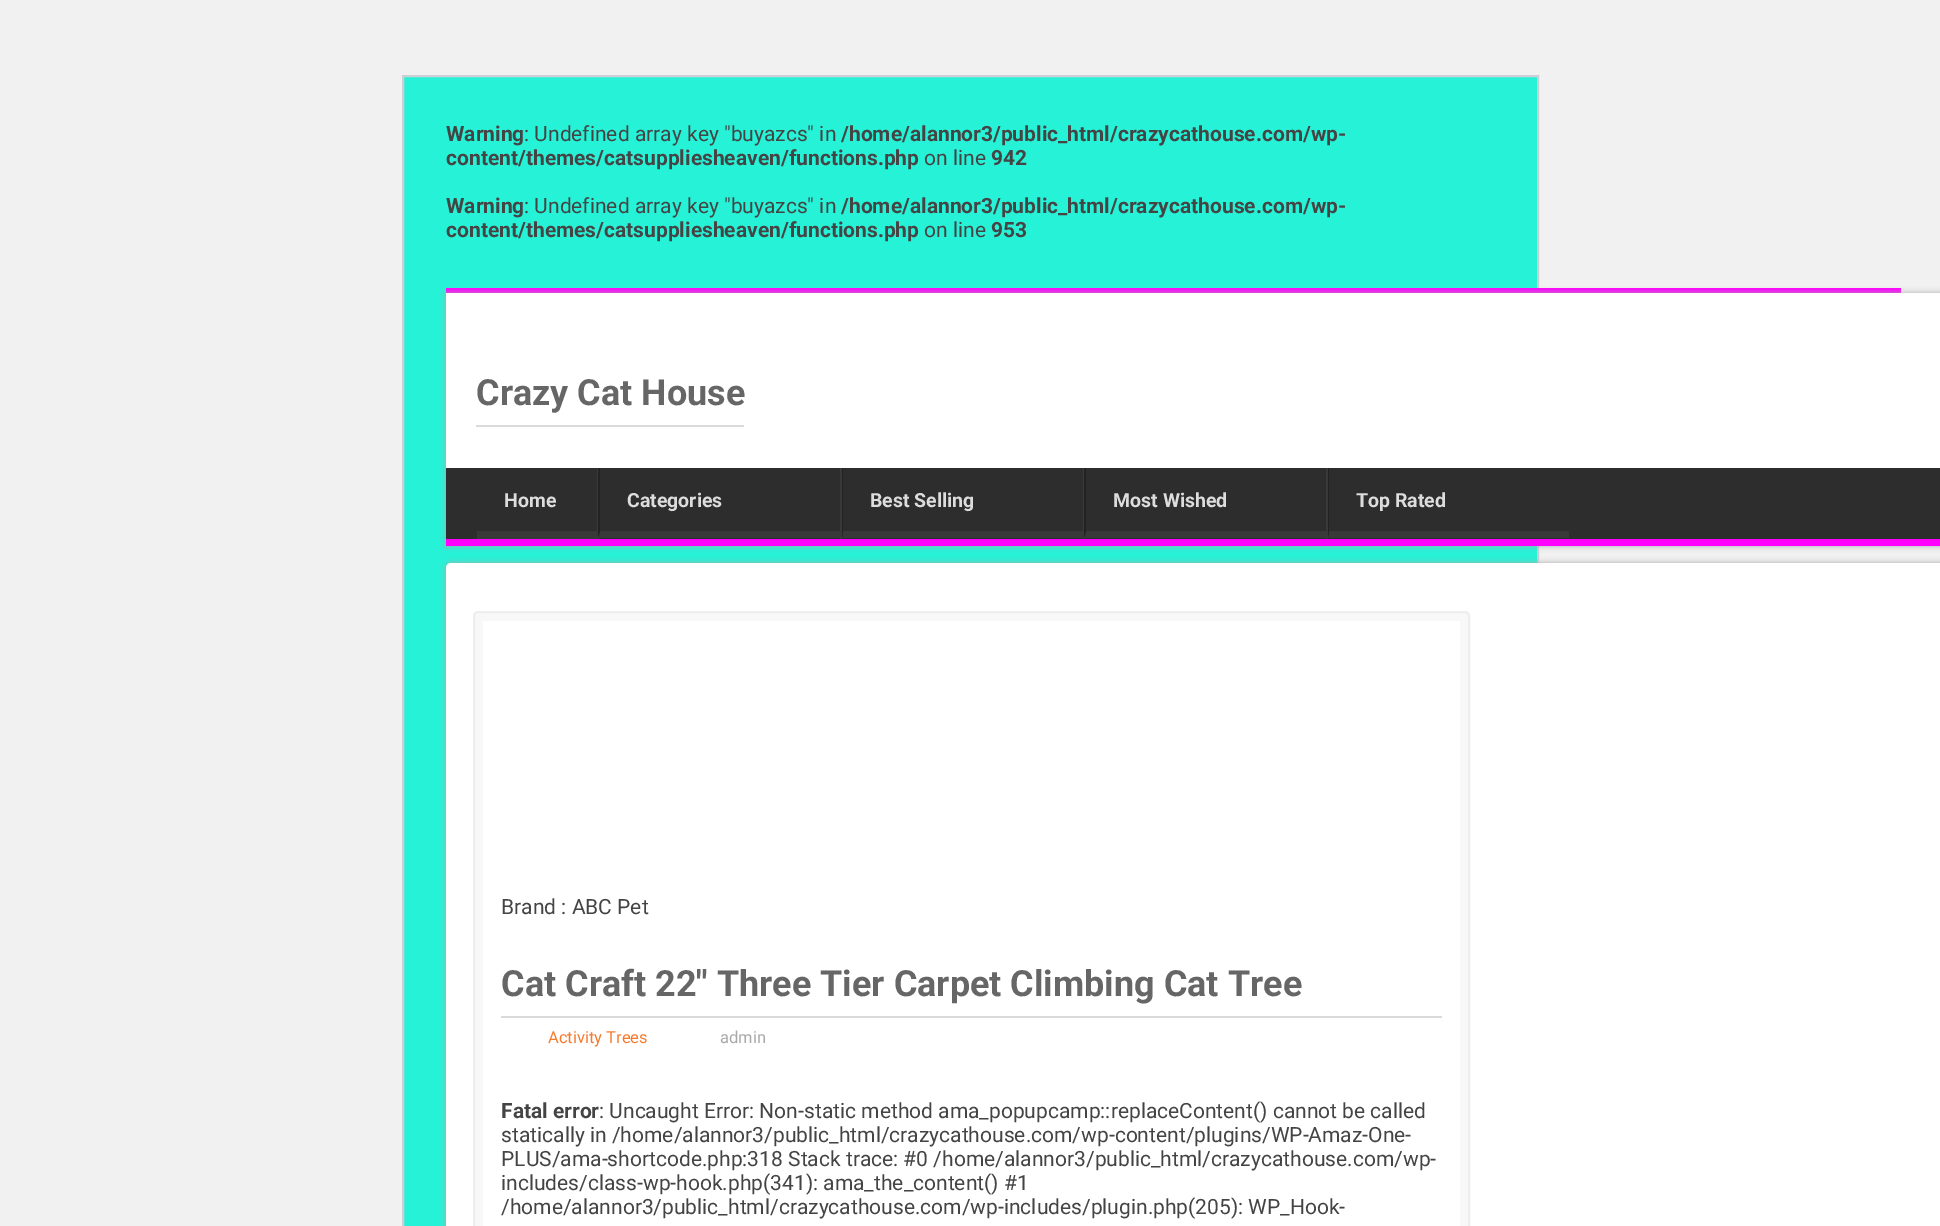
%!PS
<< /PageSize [1940 1226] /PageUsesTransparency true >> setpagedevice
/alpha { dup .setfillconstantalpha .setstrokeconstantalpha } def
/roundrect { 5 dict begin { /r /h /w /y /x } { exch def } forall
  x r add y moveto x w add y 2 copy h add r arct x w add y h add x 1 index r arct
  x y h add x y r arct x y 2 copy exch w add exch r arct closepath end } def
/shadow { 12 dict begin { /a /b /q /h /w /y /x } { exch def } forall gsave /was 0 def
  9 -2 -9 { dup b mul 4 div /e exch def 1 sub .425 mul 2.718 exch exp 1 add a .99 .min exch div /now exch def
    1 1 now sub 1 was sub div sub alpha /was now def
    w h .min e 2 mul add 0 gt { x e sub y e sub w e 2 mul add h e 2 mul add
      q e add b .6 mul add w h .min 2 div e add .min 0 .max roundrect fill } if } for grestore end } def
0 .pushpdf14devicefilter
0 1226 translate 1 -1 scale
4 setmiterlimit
0.945 setgray
0 0 1940 1226 rectfill
0.149 0.949 0.843 setrgbcolor
newpath 403 76 moveto 1538 76 lineto 1538 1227 lineto 403 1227 lineto closepath gsave fill grestore
0.8 0.816 0.831 setrgbcolor
2 setlinewidth
stroke
/Roboto-Bold [21 0 0 -21 0 0] selectfont
0.267 setgray
446 141 moveto (Warning) show
/Roboto-Regular [21 0 0 -21 0 0] selectfont
524 141 moveto (: Undefined array key "buyazcs" in) show
/Roboto-Bold [21 0 0 -21 0 0] selectfont
841 141 moveto (/home/alannor3/public_html/crazycathouse.com/wp-) show
446 165 moveto (content/themes/catsuppliesheaven/functions.php) show
/Roboto-Regular [21 0 0 -21 0 0] selectfont
924 165 moveto (on line) show
/Roboto-Bold [21 0 0 -21 0 0] selectfont
991 165 moveto (942) show
446 213 moveto (Warning) show
/Roboto-Regular [21 0 0 -21 0 0] selectfont
524 213 moveto (: Undefined array key "buyazcs" in) show
/Roboto-Bold [21 0 0 -21 0 0] selectfont
841 213 moveto (/home/alannor3/public_html/crazycathouse.com/wp-) show
446 237 moveto (content/themes/catsuppliesheaven/functions.php) show
/Roboto-Regular [21 0 0 -21 0 0] selectfont
924 237 moveto (on line) show
/Roboto-Bold [21 0 0 -21 0 0] selectfont
991 237 moveto (953) show
1 0 1 setrgbcolor
446 288 1455 5 rectfill
0.667 setgray
446 293 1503 253 0 3 1 shadow
1 setgray
446 293 1494 175 rectfill
0.855 setgray
476 425 268 2 rectfill
/Roboto-Bold [36 0 0 -36 0 0] selectfont
0.4 setgray
476 405 moveto (Crazy Cat House) show
0.176 setgray
446 468 1494 71 rectfill
1 0 1 setrgbcolor
446 539 1494 7 rectfill
0.224 setgray
597 468 1 71 rectfill
477 531 122 8 rectfill
/Roboto-Bold [19.5 0 0 -19.5 0 0] selectfont
0.867 setgray
504 507 moveto (Home) show
0.224 setgray
840 468 2 71 rectfill
newpath 842 538 moveto 598 538 lineto 600 531 lineto 840 531 lineto closepath fill
0.133 setgray
newpath 598 538 moveto 598 468 lineto 600 468 lineto 600 531 lineto closepath fill
0.867 setgray
627 507 moveto (Categories) show
0.224 setgray
1083 468 2 71 rectfill
newpath 1084 538 moveto 842 538 lineto 843 531 lineto 1083 531 lineto closepath fill
0.133 setgray
newpath 842 538 moveto 842 468 lineto 843 468 lineto 843 531 lineto closepath fill
0.867 setgray
870 507 moveto (Best Selling) show
0.224 setgray
1326 468 2 71 rectfill
newpath 1328 538 moveto 1084 538 lineto 1086 531 lineto 1326 531 lineto closepath fill
0.133 setgray
newpath 1084 538 moveto 1084 468 lineto 1086 468 lineto 1086 531 lineto closepath fill
0.867 setgray
1113 507 moveto (Most Wished) show
0.224 setgray
newpath 1569 538 moveto 1328 538 lineto 1329 531 lineto 1569 531 lineto closepath fill
0.133 setgray
newpath 1328 538 moveto 1328 468 lineto 1329 468 lineto 1329 531 lineto closepath fill
0.867 setgray
1356 507 moveto (Top Rated) show
0.667 setgray
446 563 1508 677 5 3 1 shadow
1 setgray
446 563 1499 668 5 roundrect fill
0.973 setgray
474 612 995 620 4 roundrect gsave fill grestore
0.933 setgray
stroke
1 setgray
483 621 977 605 rectfill
/Roboto-Regular [21 0 0 -21 0 0] selectfont
0.267 setgray
501 914 moveto (Brand : ABC Pet) show
0.855 setgray
501 1016 941 2 rectfill
/Roboto-Bold [36 0 0 -36 0 0] selectfont
0.4 setgray
501 996 moveto (Cat Craft 22″ Three Tier Carpet Climbing Cat Tree) show
/Roboto-Regular [16.5 0 0 -16.5 0 0] selectfont
0.961 0.475 0.169 setrgbcolor
548 1043 moveto (Activity Trees) show
0.659 setgray
720 1043 moveto (admin) show
/Roboto-Bold [21 0 0 -21 0 0] selectfont
0.267 setgray
501 1118 moveto (Fatal error) show
/Roboto-Regular [21 0 0 -21 0 0] selectfont
599 1118 moveto (: Uncaught Error: Non-static method ama_popupcamp::replaceContent\(\) cannot be called) show
501 1142 moveto (statically in /home/alannor3/public_html/crazycathouse.com/wp-content/plugins/WP-Amaz-One-) show
501 1166 moveto (PLUS/ama-shortcode.php:318 Stack trace: #0 /home/alannor3/public_html/crazycathouse.com/wp-) show
501 1190 moveto (includes/class-wp-hook.php\(341\): ama_the_content\(\) #1) show
501 1214 moveto (/home/alannor3/public_html/crazycathouse.com/wp-includes/plugin.php\(205\): WP_Hook-) show
.poppdf14devicefilter showpage
